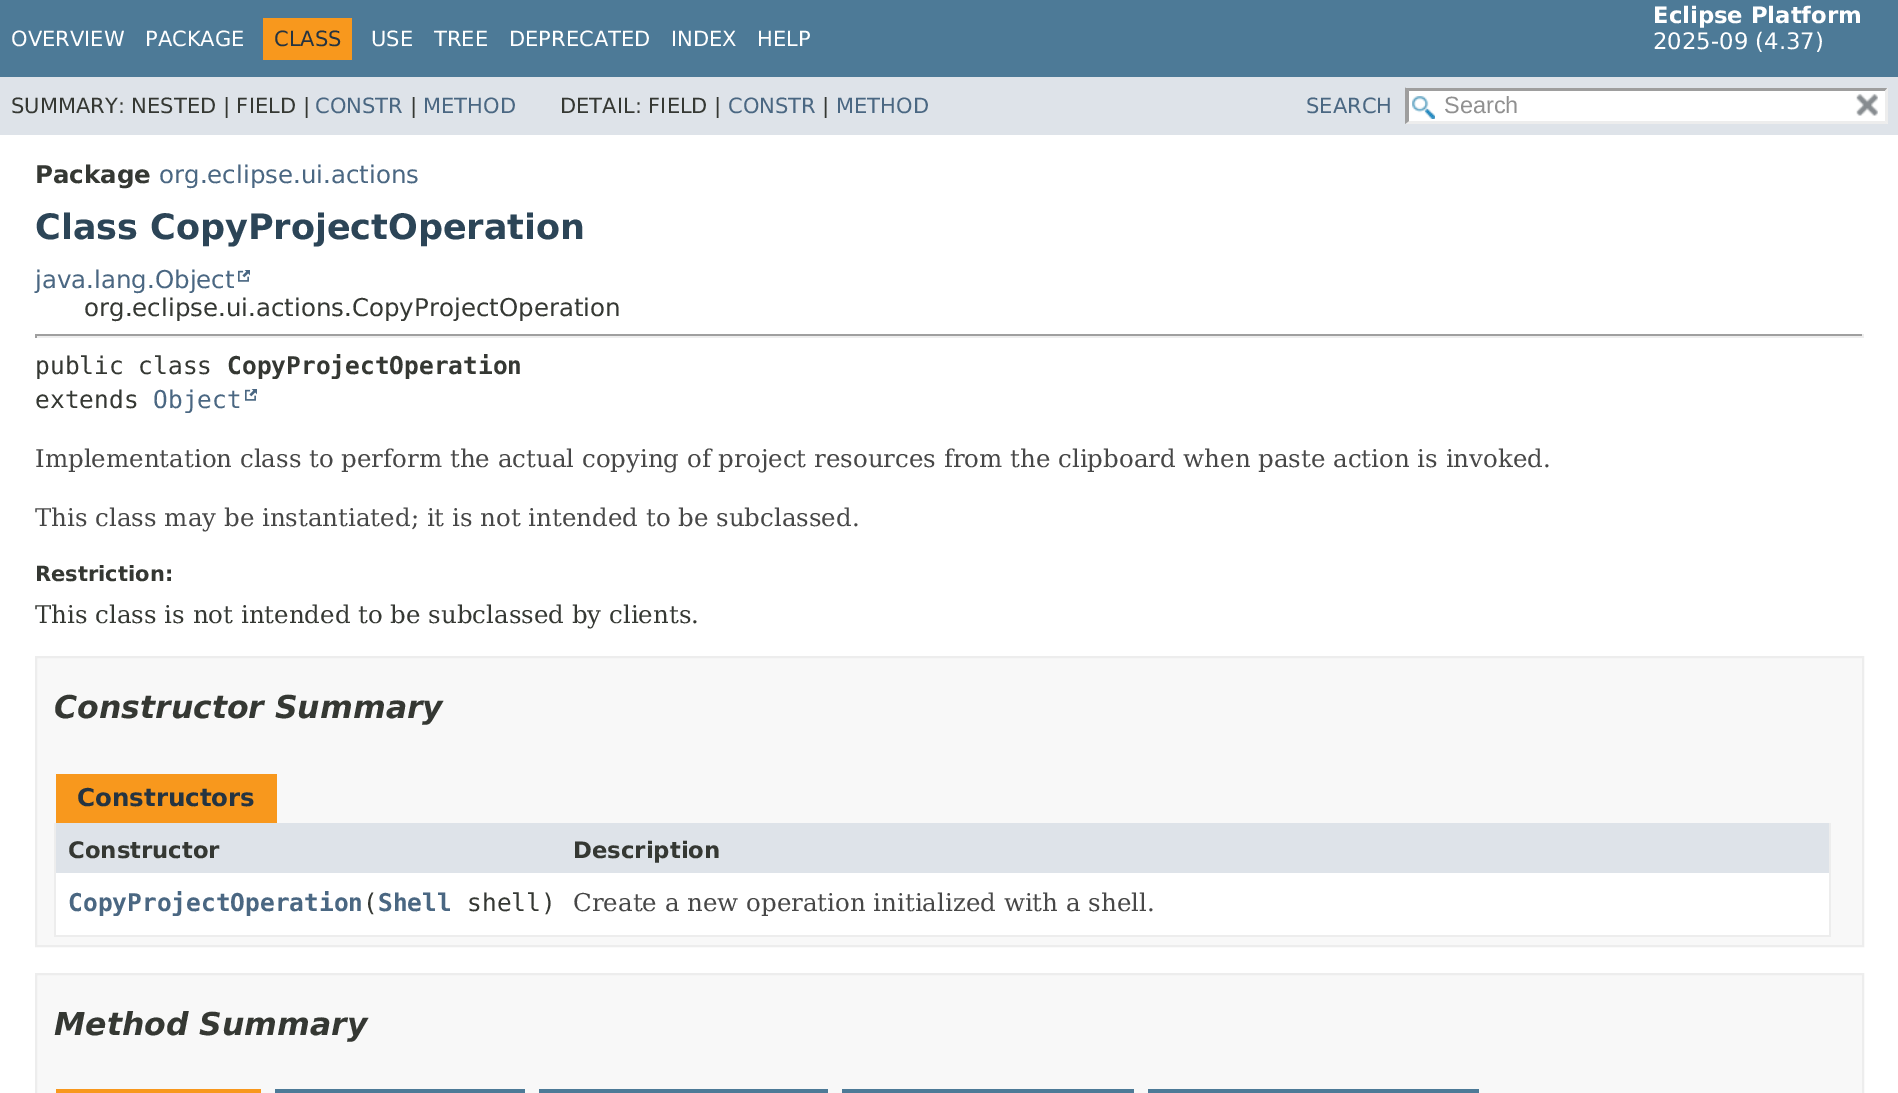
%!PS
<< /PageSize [1898 1093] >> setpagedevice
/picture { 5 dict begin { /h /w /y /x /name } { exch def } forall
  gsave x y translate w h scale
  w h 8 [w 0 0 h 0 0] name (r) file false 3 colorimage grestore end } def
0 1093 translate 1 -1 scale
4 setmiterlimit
1 setgray
0 0 1898 1093 rectfill
0.302 0.478 0.592 setrgbcolor
0 0 1898 77 rectfill
/DejaVuSans-Regular [21 0 0 -21 0 0] selectfont
1 setgray
11 46 moveto (OVERVIEW) show
145 46 moveto (PACKAGE) show
0.973 0.596 0.114 setrgbcolor
263 18 89 42 rectfill
0.145 0.204 0.255 setrgbcolor
274 46 moveto (CLASS) show
1 setgray
371 46 moveto (USE) show
434 46 moveto (TREE) show
509 46 moveto (DEPRECATED) show
671 46 moveto (INDEX) show
757 46 moveto (HELP) show
/DejaVuSans-Bold [22.75 0 0 -22.75 0 0] selectfont
1653 23 moveto (Eclipse Platform) show
/DejaVuSans-Regular [22.75 0 0 -22.75 0 0] selectfont
1653 49 moveto (2025-09 \(4.37\)) show
0.871 0.89 0.914 setrgbcolor
0 77 1898 58 rectfill
/DejaVuSans-Regular [21 0 0 -21 0 0] selectfont
0.208 0.22 0.2 setrgbcolor
11 113 moveto (SUMMARY: NESTED | FIELD |) show
0.29 0.404 0.51 setrgbcolor
315 113 moveto (CONSTR) show
0.208 0.22 0.2 setrgbcolor
410 113 moveto (|) show
0.29 0.404 0.51 setrgbcolor
423 113 moveto (METHOD) show
0.208 0.22 0.2 setrgbcolor
560 113 moveto (DETAIL: FIELD |) show
0.29 0.404 0.51 setrgbcolor
728 113 moveto (CONSTR) show
0.208 0.22 0.2 setrgbcolor
822 113 moveto (|) show
0.29 0.404 0.51 setrgbcolor
836 113 moveto (METHOD) show
1306 113 moveto (SEARCH) show
1 setgray
1405 88 483 36 rectfill
(img1.rgb) 1412 96 23 23 picture
0.62 setgray
newpath 1405 88 moveto 1888 88 lineto 1885 91 lineto 1409 91 lineto closepath fill
0.929 setgray
newpath 1888 87.5 moveto 1888 124 lineto 1885 121 lineto 1885 91 lineto closepath fill
newpath 1888 124 moveto 1405 124 lineto 1409 121 lineto 1885 121 lineto closepath fill
0.62 setgray
newpath 1405 124 moveto 1405 87.5 lineto 1409 91 lineto 1409 121 lineto closepath fill
/LiberationSans-Regular [23.5 0 0 -23.5 0 0] selectfont
0.565 setgray
1444 113 moveto (Search) show
(img2.rgb) 1856 93 22 23 picture
/DejaVuSans-Bold [24.5 0 0 -24.5 0 0] selectfont
0.208 0.22 0.2 setrgbcolor
35 183 moveto (Package) show
/DejaVuSans-Regular [24.5 0 0 -24.5 0 0] selectfont
0.29 0.404 0.51 setrgbcolor
159 183 moveto (org.eclipse.ui.actions) show
/DejaVuSans-Bold [35 0 0 -35 0 0] selectfont
0.173 0.271 0.341 setrgbcolor
35 239 moveto (Class CopyProjectOperation) show
/DejaVuSans-Regular [24.5 0 0 -24.5 0 0] selectfont
0.29 0.404 0.51 setrgbcolor
35 288 moveto (java.lang.Object) show
(img3.rgb) 238 270 12 12 picture
0.208 0.22 0.2 setrgbcolor
84 316 moveto (org.eclipse.ui.actions.CopyProjectOperation) show
0.624 setgray
35 334 1829 2 rectfill
0.933 setgray
1862 334 2 4 rectfill
35 336 1829 2 rectfill
0.624 setgray
35 334 2 4 rectfill
/DejaVuSansMono-Regular [24.5 0 0 -24.5 0 0] selectfont
0.208 0.22 0.2 setrgbcolor
35 374 moveto (public class) show
/DejaVuSansMono-Bold [24.5 0 0 -24.5 0 0] selectfont
227 374 moveto (CopyProjectOperation) show
/DejaVuSansMono-Regular [24.5 0 0 -24.5 0 0] selectfont
35 408 moveto (extends) show
0.29 0.404 0.51 setrgbcolor
153 408 moveto (Object) show
(img3.rgb) 245 389 12 12 picture
/DejaVuSerif-Regular [24.5 0 0 -24.5 0 0] selectfont
0.278 setgray
35 467 moveto (Implementation class to perform the actual copying of project resources from the clipboard when paste action is invoked.) show
35 526 moveto (This class may be instantiated; it is not intended to be subclassed.) show
/DejaVuSans-Bold [21 0 0 -21 0 0] selectfont
0.208 0.22 0.2 setrgbcolor
35 581 moveto (Restriction:) show
/DejaVuSerif-Regular [24.5 0 0 -24.5 0 0] selectfont
35 623 moveto (This class is not intended to be subclassed by clients.) show
0.973 setgray
newpath 36 657 moveto 1863 657 lineto 1863 946 lineto 36 946 lineto closepath gsave fill grestore
0.929 setgray
2 setlinewidth
stroke
/DejaVuSans-BoldItalic [31.5 0 0 -31.5 0 0] selectfont
0.208 0.22 0.2 setrgbcolor
54 718 moveto (Constructor Summary) show
0.973 0.596 0.114 setrgbcolor
56 774 221 49 rectfill
/DejaVuSans-Bold [24.5 0 0 -24.5 0 0] selectfont
0.145 0.204 0.255 setrgbcolor
77 806 moveto (Constructors) show
0.929 setgray
1829 823 2 113 rectfill
54 935 1777 2 rectfill
54 823 2 113 rectfill
0.871 0.89 0.914 setrgbcolor
56 823 1773 50 rectfill
/DejaVuSans-Bold [22.75 0 0 -22.75 0 0] selectfont
0.208 0.22 0.2 setrgbcolor
68 858 moveto (Constructor) show
573 858 moveto (Description) show
1 setgray
56 873 1773 62 rectfill
/DejaVuSansMono-Bold [24.5 0 0 -24.5 0 0] selectfont
0.29 0.404 0.51 setrgbcolor
68 911 moveto (CopyProjectOperation Shell) show
/DejaVuSansMono-Regular [24.5 0 0 -24.5 0 0] selectfont
0.208 0.22 0.2 setrgbcolor
363 911 moveto (\() show
467 911 moveto (shell\)) show
/DejaVuSerif-Regular [24.5 0 0 -24.5 0 0] selectfont
0.278 setgray
573 911 moveto (Create a new operation initialized with a shell.) show
0.973 setgray
newpath 36 974 moveto 1863 974 lineto 1863 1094 lineto 36 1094 lineto closepath gsave fill grestore
0.929 setgray
stroke
/DejaVuSans-BoldItalic [31.5 0 0 -31.5 0 0] selectfont
0.208 0.22 0.2 setrgbcolor
54 1035 moveto (Method Summary) show
0.973 0.596 0.114 setrgbcolor
56 1089 205 4 rectfill
0.302 0.478 0.592 setrgbcolor
275 1089 250 4 rectfill
539 1089 289 4 rectfill
842 1089 292 4 rectfill
1148 1089 331 4 rectfill
showpage
